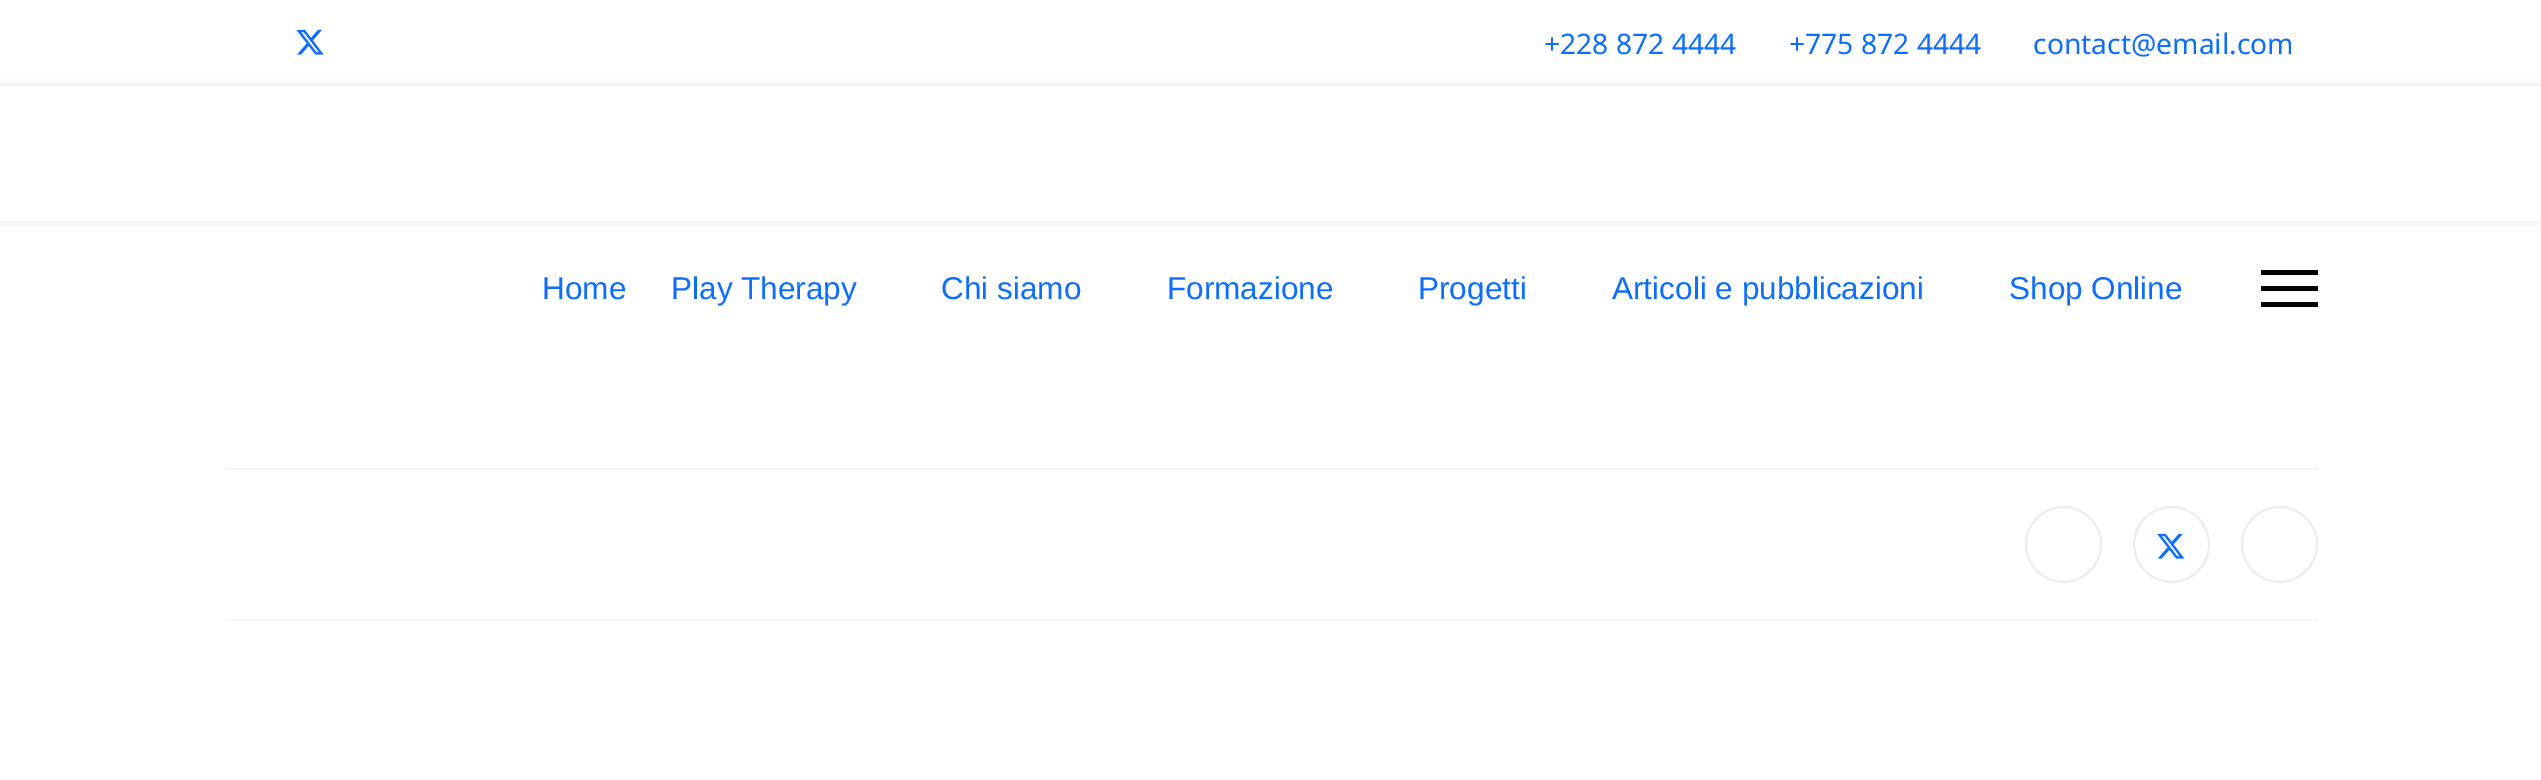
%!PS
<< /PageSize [2541 780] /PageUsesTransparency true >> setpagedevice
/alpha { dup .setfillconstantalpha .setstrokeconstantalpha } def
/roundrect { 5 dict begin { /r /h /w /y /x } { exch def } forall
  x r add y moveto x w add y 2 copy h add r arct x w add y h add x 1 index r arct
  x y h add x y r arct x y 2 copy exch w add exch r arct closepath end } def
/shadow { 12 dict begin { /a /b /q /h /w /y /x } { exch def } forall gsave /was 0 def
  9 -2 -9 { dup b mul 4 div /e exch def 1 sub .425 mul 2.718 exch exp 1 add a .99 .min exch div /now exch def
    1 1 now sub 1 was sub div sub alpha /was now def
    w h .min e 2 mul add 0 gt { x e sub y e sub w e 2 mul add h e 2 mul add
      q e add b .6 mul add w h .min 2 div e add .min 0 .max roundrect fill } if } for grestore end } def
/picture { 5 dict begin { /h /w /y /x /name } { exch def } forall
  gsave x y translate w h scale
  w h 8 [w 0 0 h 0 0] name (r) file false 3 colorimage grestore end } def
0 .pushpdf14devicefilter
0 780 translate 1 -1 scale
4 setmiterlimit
1 setgray
0 0 2541 780 rectfill
(img1.rgb) 296 29 28 26 picture
/NotoSans-Regular [28.25 0 0 -28.25 0 0] selectfont
0.051 0.431 0.992 setrgbcolor
1544 54 moveto (+228 872 4444) show
1789 54 moveto (+775 872 4444) show
2033 54 moveto (contact@email.com) show
gsave
newpath 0 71 moveto 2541 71 lineto 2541 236 lineto 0 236 lineto closepath 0 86 moveto 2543 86 lineto 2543 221 lineto 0 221 lineto closepath eoclip newpath
0 setgray
0 86 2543 135 0 4.5 0.1 shadow
grestore
/LiberationSans-Regular [31.5 0 0 -31.5 0 0] selectfont
542 299 moveto (Home) show
671 299 moveto (Play Therapy) show
941 299 moveto (Chi siamo) show
1167 299 moveto (Formazione) show
1418 299 moveto (Progetti) show
1612 299 moveto (Articoli e pubblicazioni) show
2009 299 moveto (Shop Online) show
0 setgray
2261 270 57 5 rectfill
2261 286 57 5 rectfill
2261 302 57 5 rectfill
0.961 setgray
225 468 2093 2 rectfill
225 619 2093 2 rectfill
0.929 setgray
2 setlinewidth
newpath 2063.5 544.5 37.5 0 360 arc closepath stroke
newpath 2171.5 544.5 37.5 0 360 arc closepath stroke
(img2.rgb) 2157 533 28 26 picture
newpath 2279.5 544.5 37.5 0 360 arc closepath stroke
.poppdf14devicefilter showpage
